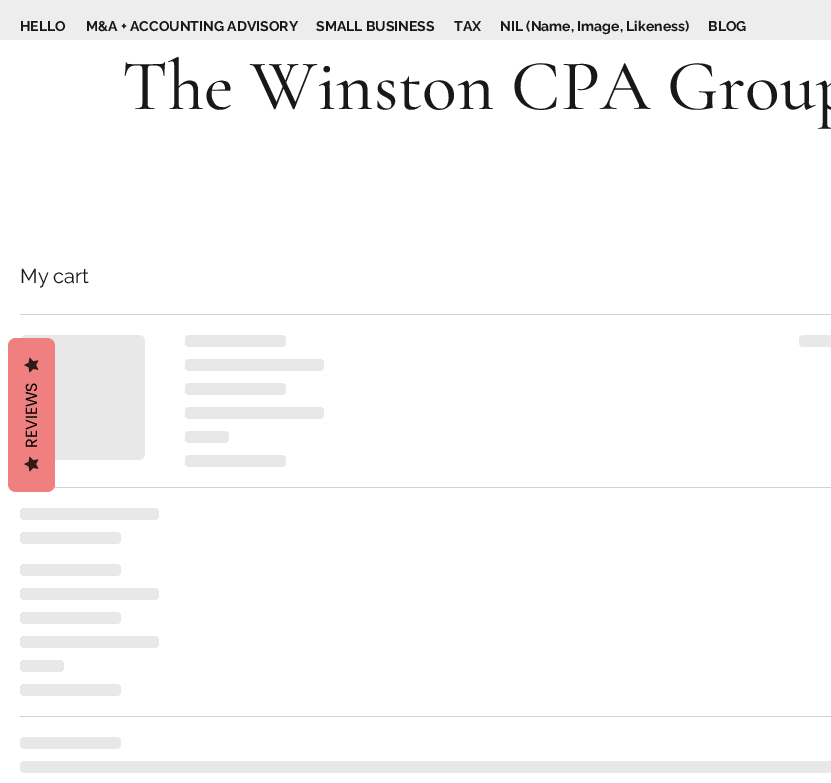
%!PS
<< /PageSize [831 783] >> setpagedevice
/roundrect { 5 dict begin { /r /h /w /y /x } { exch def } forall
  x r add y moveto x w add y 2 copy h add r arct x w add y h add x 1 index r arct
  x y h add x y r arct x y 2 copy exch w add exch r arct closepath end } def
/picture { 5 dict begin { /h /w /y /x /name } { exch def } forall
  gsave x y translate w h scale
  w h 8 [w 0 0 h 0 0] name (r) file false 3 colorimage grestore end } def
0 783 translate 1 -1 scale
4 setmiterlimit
1 setgray
0 0 831 783 rectfill
0.929 setgray
0 0 831 40 rectfill
/Raleway-Bold [14 0 0 -14 0 0] selectfont
0.094 setgray
20 31 moveto (HELLO) show
86 31 moveto (M&A + ACCOUNTING ADVISORY) show
316 31 moveto (SMALL BUSINESS) show
454 31 moveto (TAX) show
500 31 moveto (NIL \(Name, Image, Likeness\)) show
708 31 moveto (BLOG) show
/CormorantGaramond-Medium [72 0 0 -72 0 0] selectfont
122 109 moveto (The Winston CPA Group) show
0.82 setgray
20 314 811 1 rectfill
/Raleway-Regular [20 0 0 -20 0 0] selectfont
0.094 setgray
20 283 moveto (My cart) show
gsave 20 335 125 125 8 roundrect clip newpath
<< /ShadingType 2 /ColorSpace /DeviceRGB /Coords [20 398 520 398] /Extend [true true] /Function << /FunctionType 3 /Domain [0 1] /Functions [<< /FunctionType 2 /Domain [0 1] /C0 [0.91 0.91 0.91] /C1 [0.91 0.91 0.91] /N 1 >> << /FunctionType 2 /Domain [0 1] /C0 [0.91 0.91 0.91] /C1 [0.82 0.82 0.82] /N 1 >> << /FunctionType 2 /Domain [0 1] /C0 [0.82 0.82 0.82] /C1 [0.91 0.91 0.91] /N 1 >> << /FunctionType 2 /Domain [0 1] /C0 [0.91 0.91 0.91] /C1 [0.91 0.91 0.91] /N 1 >>] /Bounds [0.25 0.37 0.63] /Encode [0 1 0 1 0 1 0 1] >> >> shfill grestore
gsave 185 335 101 12 6 roundrect clip newpath
<< /ShadingType 2 /ColorSpace /DeviceRGB /Coords [185 341 589 341] /Extend [true true] /Function << /FunctionType 3 /Domain [0 1] /Functions [<< /FunctionType 2 /Domain [0 1] /C0 [0.91 0.91 0.91] /C1 [0.91 0.91 0.91] /N 1 >> << /FunctionType 2 /Domain [0 1] /C0 [0.91 0.91 0.91] /C1 [0.82 0.82 0.82] /N 1 >> << /FunctionType 2 /Domain [0 1] /C0 [0.82 0.82 0.82] /C1 [0.91 0.91 0.91] /N 1 >> << /FunctionType 2 /Domain [0 1] /C0 [0.91 0.91 0.91] /C1 [0.91 0.91 0.91] /N 1 >>] /Bounds [0.25 0.37 0.63] /Encode [0 1 0 1 0 1 0 1] >> >> shfill grestore
gsave 185 359 139 12 6 roundrect clip newpath
<< /ShadingType 2 /ColorSpace /DeviceRGB /Coords [185 365 741 365] /Extend [true true] /Function << /FunctionType 3 /Domain [0 1] /Functions [<< /FunctionType 2 /Domain [0 1] /C0 [0.91 0.91 0.91] /C1 [0.91 0.91 0.91] /N 1 >> << /FunctionType 2 /Domain [0 1] /C0 [0.91 0.91 0.91] /C1 [0.82 0.82 0.82] /N 1 >> << /FunctionType 2 /Domain [0 1] /C0 [0.82 0.82 0.82] /C1 [0.91 0.91 0.91] /N 1 >> << /FunctionType 2 /Domain [0 1] /C0 [0.91 0.91 0.91] /C1 [0.91 0.91 0.91] /N 1 >>] /Bounds [0.25 0.37 0.63] /Encode [0 1 0 1 0 1 0 1] >> >> shfill grestore
gsave 185 383 101 12 6 roundrect clip newpath
<< /ShadingType 2 /ColorSpace /DeviceRGB /Coords [185 389 589 389] /Extend [true true] /Function << /FunctionType 3 /Domain [0 1] /Functions [<< /FunctionType 2 /Domain [0 1] /C0 [0.91 0.91 0.91] /C1 [0.91 0.91 0.91] /N 1 >> << /FunctionType 2 /Domain [0 1] /C0 [0.91 0.91 0.91] /C1 [0.82 0.82 0.82] /N 1 >> << /FunctionType 2 /Domain [0 1] /C0 [0.82 0.82 0.82] /C1 [0.91 0.91 0.91] /N 1 >> << /FunctionType 2 /Domain [0 1] /C0 [0.91 0.91 0.91] /C1 [0.91 0.91 0.91] /N 1 >>] /Bounds [0.25 0.37 0.63] /Encode [0 1 0 1 0 1 0 1] >> >> shfill grestore
gsave 185 407 139 12 6 roundrect clip newpath
<< /ShadingType 2 /ColorSpace /DeviceRGB /Coords [185 413 741 413] /Extend [true true] /Function << /FunctionType 3 /Domain [0 1] /Functions [<< /FunctionType 2 /Domain [0 1] /C0 [0.91 0.91 0.91] /C1 [0.91 0.91 0.91] /N 1 >> << /FunctionType 2 /Domain [0 1] /C0 [0.91 0.91 0.91] /C1 [0.82 0.82 0.82] /N 1 >> << /FunctionType 2 /Domain [0 1] /C0 [0.82 0.82 0.82] /C1 [0.91 0.91 0.91] /N 1 >> << /FunctionType 2 /Domain [0 1] /C0 [0.91 0.91 0.91] /C1 [0.91 0.91 0.91] /N 1 >>] /Bounds [0.25 0.37 0.63] /Encode [0 1 0 1 0 1 0 1] >> >> shfill grestore
gsave 185 431 44 12 6 roundrect clip newpath
<< /ShadingType 2 /ColorSpace /DeviceRGB /Coords [185 437 361 437] /Extend [true true] /Function << /FunctionType 3 /Domain [0 1] /Functions [<< /FunctionType 2 /Domain [0 1] /C0 [0.91 0.91 0.91] /C1 [0.91 0.91 0.91] /N 1 >> << /FunctionType 2 /Domain [0 1] /C0 [0.91 0.91 0.91] /C1 [0.82 0.82 0.82] /N 1 >> << /FunctionType 2 /Domain [0 1] /C0 [0.82 0.82 0.82] /C1 [0.91 0.91 0.91] /N 1 >> << /FunctionType 2 /Domain [0 1] /C0 [0.91 0.91 0.91] /C1 [0.91 0.91 0.91] /N 1 >>] /Bounds [0.25 0.37 0.63] /Encode [0 1 0 1 0 1 0 1] >> >> shfill grestore
gsave 185 455 101 12 6 roundrect clip newpath
<< /ShadingType 2 /ColorSpace /DeviceRGB /Coords [185 461 589 461] /Extend [true true] /Function << /FunctionType 3 /Domain [0 1] /Functions [<< /FunctionType 2 /Domain [0 1] /C0 [0.91 0.91 0.91] /C1 [0.91 0.91 0.91] /N 1 >> << /FunctionType 2 /Domain [0 1] /C0 [0.91 0.91 0.91] /C1 [0.82 0.82 0.82] /N 1 >> << /FunctionType 2 /Domain [0 1] /C0 [0.82 0.82 0.82] /C1 [0.91 0.91 0.91] /N 1 >> << /FunctionType 2 /Domain [0 1] /C0 [0.91 0.91 0.91] /C1 [0.91 0.91 0.91] /N 1 >>] /Bounds [0.25 0.37 0.63] /Encode [0 1 0 1 0 1 0 1] >> >> shfill grestore
gsave 799 335 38 12 6 roundrect clip newpath
<< /ShadingType 2 /ColorSpace /DeviceRGB /Coords [799 341 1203 341] /Extend [true true] /Function << /FunctionType 3 /Domain [0 1] /Functions [<< /FunctionType 2 /Domain [0 1] /C0 [0.91 0.91 0.91] /C1 [0.91 0.91 0.91] /N 1 >> << /FunctionType 2 /Domain [0 1] /C0 [0.91 0.91 0.91] /C1 [0.82 0.82 0.82] /N 1 >> << /FunctionType 2 /Domain [0 1] /C0 [0.82 0.82 0.82] /C1 [0.91 0.91 0.91] /N 1 >> << /FunctionType 2 /Domain [0 1] /C0 [0.91 0.91 0.91] /C1 [0.91 0.91 0.91] /N 1 >>] /Bounds [0.25 0.37 0.63] /Encode [0 1 0 1 0 1 0 1] >> >> shfill grestore
0.82 setgray
54 487 777 1 rectfill
gsave 20 508 139 12 6 roundrect clip newpath
<< /ShadingType 2 /ColorSpace /DeviceRGB /Coords [20 514 576 514] /Extend [true true] /Function << /FunctionType 3 /Domain [0 1] /Functions [<< /FunctionType 2 /Domain [0 1] /C0 [0.91 0.91 0.91] /C1 [0.91 0.91 0.91] /N 1 >> << /FunctionType 2 /Domain [0 1] /C0 [0.91 0.91 0.91] /C1 [0.82 0.82 0.82] /N 1 >> << /FunctionType 2 /Domain [0 1] /C0 [0.82 0.82 0.82] /C1 [0.91 0.91 0.91] /N 1 >> << /FunctionType 2 /Domain [0 1] /C0 [0.91 0.91 0.91] /C1 [0.91 0.91 0.91] /N 1 >>] /Bounds [0.25 0.37 0.63] /Encode [0 1 0 1 0 1 0 1] >> >> shfill grestore
gsave 20 532 101 12 6 roundrect clip newpath
<< /ShadingType 2 /ColorSpace /DeviceRGB /Coords [20 538 424 538] /Extend [true true] /Function << /FunctionType 3 /Domain [0 1] /Functions [<< /FunctionType 2 /Domain [0 1] /C0 [0.91 0.91 0.91] /C1 [0.91 0.91 0.91] /N 1 >> << /FunctionType 2 /Domain [0 1] /C0 [0.91 0.91 0.91] /C1 [0.82 0.82 0.82] /N 1 >> << /FunctionType 2 /Domain [0 1] /C0 [0.82 0.82 0.82] /C1 [0.91 0.91 0.91] /N 1 >> << /FunctionType 2 /Domain [0 1] /C0 [0.91 0.91 0.91] /C1 [0.91 0.91 0.91] /N 1 >>] /Bounds [0.25 0.37 0.63] /Encode [0 1 0 1 0 1 0 1] >> >> shfill grestore
gsave 20 564 101 12 6 roundrect clip newpath
<< /ShadingType 2 /ColorSpace /DeviceRGB /Coords [20 570 424 570] /Extend [true true] /Function << /FunctionType 3 /Domain [0 1] /Functions [<< /FunctionType 2 /Domain [0 1] /C0 [0.91 0.91 0.91] /C1 [0.91 0.91 0.91] /N 1 >> << /FunctionType 2 /Domain [0 1] /C0 [0.91 0.91 0.91] /C1 [0.82 0.82 0.82] /N 1 >> << /FunctionType 2 /Domain [0 1] /C0 [0.82 0.82 0.82] /C1 [0.91 0.91 0.91] /N 1 >> << /FunctionType 2 /Domain [0 1] /C0 [0.91 0.91 0.91] /C1 [0.91 0.91 0.91] /N 1 >>] /Bounds [0.25 0.37 0.63] /Encode [0 1 0 1 0 1 0 1] >> >> shfill grestore
gsave 20 588 139 12 6 roundrect clip newpath
<< /ShadingType 2 /ColorSpace /DeviceRGB /Coords [20 594 576 594] /Extend [true true] /Function << /FunctionType 3 /Domain [0 1] /Functions [<< /FunctionType 2 /Domain [0 1] /C0 [0.91 0.91 0.91] /C1 [0.91 0.91 0.91] /N 1 >> << /FunctionType 2 /Domain [0 1] /C0 [0.91 0.91 0.91] /C1 [0.82 0.82 0.82] /N 1 >> << /FunctionType 2 /Domain [0 1] /C0 [0.82 0.82 0.82] /C1 [0.91 0.91 0.91] /N 1 >> << /FunctionType 2 /Domain [0 1] /C0 [0.91 0.91 0.91] /C1 [0.91 0.91 0.91] /N 1 >>] /Bounds [0.25 0.37 0.63] /Encode [0 1 0 1 0 1 0 1] >> >> shfill grestore
gsave 20 612 101 12 6 roundrect clip newpath
<< /ShadingType 2 /ColorSpace /DeviceRGB /Coords [20 618 424 618] /Extend [true true] /Function << /FunctionType 3 /Domain [0 1] /Functions [<< /FunctionType 2 /Domain [0 1] /C0 [0.91 0.91 0.91] /C1 [0.91 0.91 0.91] /N 1 >> << /FunctionType 2 /Domain [0 1] /C0 [0.91 0.91 0.91] /C1 [0.82 0.82 0.82] /N 1 >> << /FunctionType 2 /Domain [0 1] /C0 [0.82 0.82 0.82] /C1 [0.91 0.91 0.91] /N 1 >> << /FunctionType 2 /Domain [0 1] /C0 [0.91 0.91 0.91] /C1 [0.91 0.91 0.91] /N 1 >>] /Bounds [0.25 0.37 0.63] /Encode [0 1 0 1 0 1 0 1] >> >> shfill grestore
gsave 20 636 139 12 6 roundrect clip newpath
<< /ShadingType 2 /ColorSpace /DeviceRGB /Coords [20 642 576 642] /Extend [true true] /Function << /FunctionType 3 /Domain [0 1] /Functions [<< /FunctionType 2 /Domain [0 1] /C0 [0.91 0.91 0.91] /C1 [0.91 0.91 0.91] /N 1 >> << /FunctionType 2 /Domain [0 1] /C0 [0.91 0.91 0.91] /C1 [0.82 0.82 0.82] /N 1 >> << /FunctionType 2 /Domain [0 1] /C0 [0.82 0.82 0.82] /C1 [0.91 0.91 0.91] /N 1 >> << /FunctionType 2 /Domain [0 1] /C0 [0.91 0.91 0.91] /C1 [0.91 0.91 0.91] /N 1 >>] /Bounds [0.25 0.37 0.63] /Encode [0 1 0 1 0 1 0 1] >> >> shfill grestore
gsave 20 660 44 12 6 roundrect clip newpath
<< /ShadingType 2 /ColorSpace /DeviceRGB /Coords [20 666 196 666] /Extend [true true] /Function << /FunctionType 3 /Domain [0 1] /Functions [<< /FunctionType 2 /Domain [0 1] /C0 [0.91 0.91 0.91] /C1 [0.91 0.91 0.91] /N 1 >> << /FunctionType 2 /Domain [0 1] /C0 [0.91 0.91 0.91] /C1 [0.82 0.82 0.82] /N 1 >> << /FunctionType 2 /Domain [0 1] /C0 [0.82 0.82 0.82] /C1 [0.91 0.91 0.91] /N 1 >> << /FunctionType 2 /Domain [0 1] /C0 [0.91 0.91 0.91] /C1 [0.91 0.91 0.91] /N 1 >>] /Bounds [0.25 0.37 0.63] /Encode [0 1 0 1 0 1 0 1] >> >> shfill grestore
gsave 20 684 101 12 6 roundrect clip newpath
<< /ShadingType 2 /ColorSpace /DeviceRGB /Coords [20 690 424 690] /Extend [true true] /Function << /FunctionType 3 /Domain [0 1] /Functions [<< /FunctionType 2 /Domain [0 1] /C0 [0.91 0.91 0.91] /C1 [0.91 0.91 0.91] /N 1 >> << /FunctionType 2 /Domain [0 1] /C0 [0.91 0.91 0.91] /C1 [0.82 0.82 0.82] /N 1 >> << /FunctionType 2 /Domain [0 1] /C0 [0.82 0.82 0.82] /C1 [0.91 0.91 0.91] /N 1 >> << /FunctionType 2 /Domain [0 1] /C0 [0.91 0.91 0.91] /C1 [0.91 0.91 0.91] /N 1 >>] /Bounds [0.25 0.37 0.63] /Encode [0 1 0 1 0 1 0 1] >> >> shfill grestore
20 716 811 1 rectfill
gsave 20 737 101 12 6 roundrect clip newpath
<< /ShadingType 2 /ColorSpace /DeviceRGB /Coords [20 743 424 743] /Extend [true true] /Function << /FunctionType 3 /Domain [0 1] /Functions [<< /FunctionType 2 /Domain [0 1] /C0 [0.91 0.91 0.91] /C1 [0.91 0.91 0.91] /N 1 >> << /FunctionType 2 /Domain [0 1] /C0 [0.91 0.91 0.91] /C1 [0.82 0.82 0.82] /N 1 >> << /FunctionType 2 /Domain [0 1] /C0 [0.82 0.82 0.82] /C1 [0.91 0.91 0.91] /N 1 >> << /FunctionType 2 /Domain [0 1] /C0 [0.91 0.91 0.91] /C1 [0.91 0.91 0.91] /N 1 >>] /Bounds [0.25 0.37 0.63] /Encode [0 1 0 1 0 1 0 1] >> >> shfill grestore
gsave 20 761 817 12 6 roundrect clip newpath
<< /ShadingType 2 /ColorSpace /DeviceRGB /Coords [20 767 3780 767] /Extend [true true] /Function << /FunctionType 3 /Domain [0 1] /Functions [<< /FunctionType 2 /Domain [0 1] /C0 [0.91 0.91 0.91] /C1 [0.91 0.91 0.91] /N 1 >> << /FunctionType 2 /Domain [0 1] /C0 [0.91 0.91 0.91] /C1 [0.82 0.82 0.82] /N 1 >> << /FunctionType 2 /Domain [0 1] /C0 [0.82 0.82 0.82] /C1 [0.91 0.91 0.91] /N 1 >> << /FunctionType 2 /Domain [0 1] /C0 [0.91 0.91 0.91] /C1 [0.91 0.91 0.91] /N 1 >>] /Bounds [0.25 0.37 0.63] /Encode [0 1 0 1 0 1 0 1] >> >> shfill grestore
0.941 0.502 0.502 setrgbcolor
newpath 8 484 moveto 8 346 lineto 8 341 12 338 16 338 curveto 47 338 lineto 51 338 55 341 55 346 curveto 55 484 lineto 55 489 51 492 47 492 curveto 16 492 lineto 12 492 8 489 8 484 curveto closepath fill
(img1.rgb) 24 357 15 16 picture
/Poppins-Regular [16 0 0 -16 0 0] selectfont
0 setgray
gsave 37 448 translate -90 rotate 0 0 moveto (REVIEWS) show grestore
(img1.rgb) 24 456 15 16 picture
showpage
